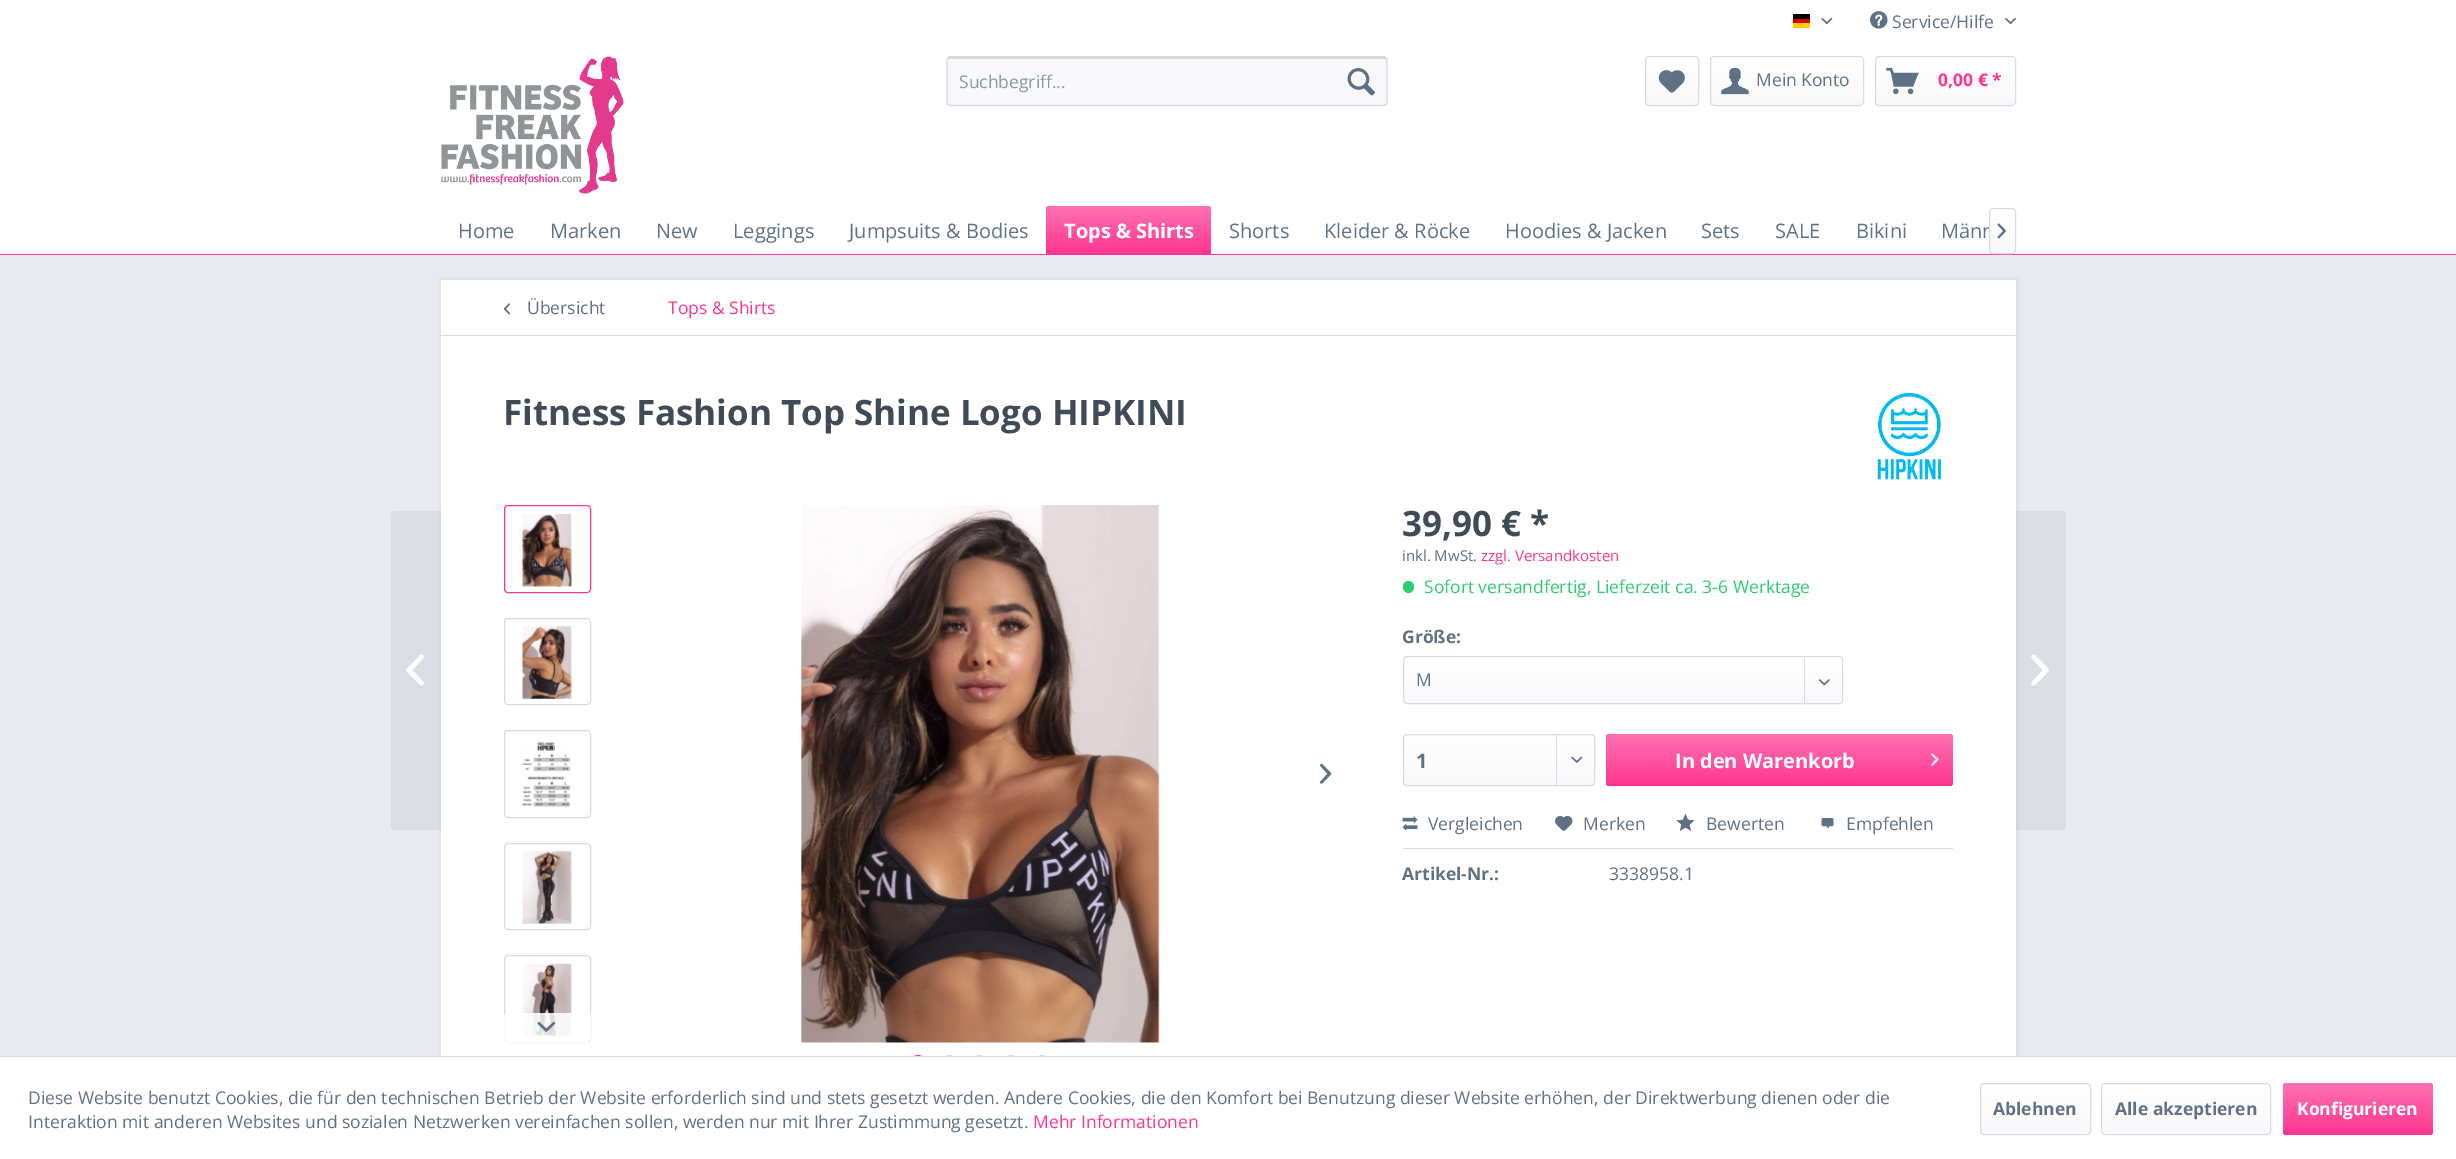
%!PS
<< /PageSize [2456 1159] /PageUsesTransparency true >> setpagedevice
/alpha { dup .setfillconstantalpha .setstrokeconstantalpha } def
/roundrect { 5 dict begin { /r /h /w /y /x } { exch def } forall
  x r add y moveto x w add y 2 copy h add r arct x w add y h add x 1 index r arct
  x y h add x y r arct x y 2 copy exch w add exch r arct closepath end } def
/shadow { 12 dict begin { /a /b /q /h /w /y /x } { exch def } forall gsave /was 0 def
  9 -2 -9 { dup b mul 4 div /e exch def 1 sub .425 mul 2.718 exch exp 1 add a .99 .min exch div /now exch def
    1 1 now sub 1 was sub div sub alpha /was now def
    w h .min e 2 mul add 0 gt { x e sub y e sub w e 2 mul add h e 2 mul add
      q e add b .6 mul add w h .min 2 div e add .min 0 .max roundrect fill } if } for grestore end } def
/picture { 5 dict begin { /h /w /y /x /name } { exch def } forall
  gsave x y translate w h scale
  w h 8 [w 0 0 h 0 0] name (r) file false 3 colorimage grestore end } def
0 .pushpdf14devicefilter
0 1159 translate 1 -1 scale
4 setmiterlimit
0.914 0.914 0.941 setrgbcolor
0 0 2456 1159 rectfill
1 setgray
0 0 2456 254 rectfill
0 setgray
1793 14 17 5 rectfill
0.867 0 0 setrgbcolor
1793 19 17 4 rectfill
1 0.808 0 setrgbcolor
1793 23 17 5 rectfill
(img1.rgb) 1821 17 12 8 picture
(img2.rgb) 1870 11 18 18 picture
/OpenSans-Regular [17.5 0 0 -17.5 0 0] selectfont
0.373 0.447 0.522 setrgbcolor
1892 28 moveto (Service/Hilfe) show
(img3.rgb) 2005 17 11 8 picture
(img4.rgb) 441 56 183 138 picture
0.973 0.973 0.98 setrgbcolor
946 56 442 50 4 roundrect fill
0.855 0.855 0.898 setrgbcolor
newpath 950 59 moveto 1384 59 lineto 1385 59 1386 60 1386 61 curveto 1386 59 1385 58 1384 58 curveto 950 58 lineto 949 59 lineto 948 61 lineto 948 60 949 59 950 59 curveto closepath fill
0.796 0.796 0.859 setrgbcolor
1.2 setlinewidth
newpath 948 58 moveto 950 57 lineto 1384 57 lineto 1386 58 lineto stroke
0.855 0.855 0.898 setrgbcolor
newpath 1386 58 moveto 1387 60 lineto 1387 102.5 lineto 1386 104.5 lineto 1384 105.5 lineto 950 105.5 lineto 948 104.5 lineto 947 102.5 lineto 947 60 lineto 948 58 lineto stroke
0.529 0.596 0.663 setrgbcolor
959 88 moveto (Suchbegriff...) show
(img5.rgb) 1347 68 28 28 picture
gsave 1646 58 52 47 2.5 roundrect clip newpath
<< /ShadingType 2 /ColorSpace /DeviceRGB /Coords [1672 58 1672 105] /Extend [true true] /Function << /FunctionType 2 /Domain [0 1] /C0 [1 1 1] /C1 [0.973 0.973 0.98] /N 1 >> >> shfill grestore
0.855 0.855 0.898 setrgbcolor
1 setlinewidth
1645.5 56.5 53 49 3.5 roundrect stroke
(img6.rgb) 1658 70 27 23 picture
gsave 1711 58 152 47 2.5 roundrect clip newpath
<< /ShadingType 2 /ColorSpace /DeviceRGB /Coords [1787 57 1787 105] /Extend [true true] /Function << /FunctionType 2 /Domain [0 1] /C0 [1 1 1] /C1 [0.973 0.973 0.98] /N 1 >> >> shfill grestore
1710.5 56.5 153 49 3.5 roundrect stroke
(img7.rgb) 1721 67 28 28 picture
0.373 0.447 0.522 setrgbcolor
1756 86 moveto (Mein Konto) show
gsave 1876 58 139 47 2.5 roundrect clip newpath
<< /ShadingType 2 /ColorSpace /DeviceRGB /Coords [1946 57 1946 105] /Extend [true true] /Function << /FunctionType 2 /Domain [0 1] /C0 [1 1 1] /C1 [0.973 0.973 0.98] /N 1 >> >> shfill grestore
0.855 0.855 0.898 setrgbcolor
1875.5 56.5 140 49 3.5 roundrect stroke
(img8.rgb) 1886 67 33 28 picture
/OpenSans-Bold [17.5 0 0 -17.5 0 0] selectfont
1 0.208 0.565 setrgbcolor
1938 86 moveto (0,00 € *) show
0 254 2456 1 rectfill
/OpenSans-Regular [20 0 0 -20 0 0] selectfont
0.373 0.447 0.522 setrgbcolor
458 238 moveto (Home) show
550 238 moveto (Marken) show
656 238 moveto (New) show
733 238 moveto (Leggings) show
849 238 moveto (Jumpsuits & Bodies) show
gsave newpath 1050 206 moveto 1207 206 lineto 1209 206 1211 208 1211 210 curveto 1211 254 lineto 1046 254 lineto 1046 210 lineto 1046 208 1048 206 1050 206 curveto closepath clip newpath
<< /ShadingType 2 /ColorSpace /DeviceRGB /Coords [1129 206 1129 254] /Extend [true true] /Function << /FunctionType 2 /Domain [0 1] /C0 [1 0.447 0.698] /C1 [1 0.208 0.565] /N 1 >> >> shfill grestore
/OpenSans-Bold [20 0 0 -20 0 0] selectfont
1 setgray
1064 238 moveto (Tops & Shirts) show
/OpenSans-Regular [20 0 0 -20 0 0] selectfont
0.373 0.447 0.522 setrgbcolor
1229 238 moveto (Shorts) show
1324 238 moveto (Kleider & Röcke) show
1505 238 moveto (Hoodies & Jacken) show
1701 238 moveto (Sets) show
1775 238 moveto (SALE) show
1856 238 moveto (Bikini) show
1941 238 moveto (Männ) show
gsave 1990 209 25 44 2.5 roundrect clip newpath
<< /ShadingType 2 /ColorSpace /DeviceRGB /Coords [2003 209 2003 253] /Extend [true true] /Function << /FunctionType 2 /Domain [0 1] /C0 [1 1 1] /C1 [0.973 0.973 0.98] /N 1 >> >> shfill grestore
0.855 0.855 0.898 setrgbcolor
1989.5 208.5 26 45 3.5 roundrect stroke
(img9.rgb) 1997 223 9 16 picture
440 279 1578 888 0 2.5 1 shadow
1 setgray
441 280 1575 55 rectfill
0.855 0.855 0.898 setrgbcolor
441 335 1 1 rectfill
(img10.rgb) 503 303 7 12 picture
/OpenSans-Regular [17.5 0 0 -17.5 0 0] selectfont
0.373 0.447 0.522 setrgbcolor
527 314 moveto (Übersicht) show
1 0.208 0.565 setrgbcolor
668 314 moveto (Tops & Shirts) show
1 setgray
441 336 1575 720 rectfill
/OpenSans-Bold [35 0 0 -35 0 0] selectfont
0.247 0.298 0.345 setrgbcolor
503 425 moveto (Fitness Fashion Top Shine Logo HIPKINI) show
(img11.rgb) 1877 392 64 88 picture
1 0.208 0.565 setrgbcolor
504.5 505.5 86 87 3.5 roundrect stroke
(img12.rgb) 521 514 51 73 picture
0.855 0.855 0.898 setrgbcolor
504.5 618.5 86 86 3.5 roundrect stroke
(img13.rgb) 521 625 51 74 picture
504.5 730.5 86 87 3.5 roundrect stroke
(img14.rgb) 521 741 50 66 picture
504.5 843.5 86 86 3.5 roundrect stroke
(img15.rgb) 522 850 50 74 picture
504.5 955.5 86 87 3.5 roundrect stroke
(img16.rgb) 522 963 50 74 picture
0.85 alpha
1 setgray
newpath 507.5 1014 moveto 587.5 1014 lineto 589 1014 590 1015 590 1016.5 curveto 590 1041 lineto 505 1041 lineto 505 1016.5 lineto 505 1015 506 1014 507.5 1014 curveto closepath fill
newpath 508 1013.5 moveto 587 1013.5 lineto 589 1013.5 590.5 1015 590.5 1017 curveto 590.5 1042.5 lineto 504.5 1042.5 lineto 504.5 1017 lineto 504.5 1015 506 1013.5 508 1013.5 curveto closepath stroke
1 alpha
(img17.rgb) 537 1021 19 11 picture
(img18.rgb) 801 505 359 538 picture
(img19.rgb) 1320 763 12 21 picture
1 0.208 0.565 setrgbcolor
newpath 918 1062 6.5 0 360 arc closepath stroke
0.855 0.855 0.898 setrgbcolor
943.5 1055.5 12 13 6 roundrect stroke
973.5 1055.5 12 13 6 roundrect stroke
newpath 1011 1062 6.5 0 360 arc closepath stroke
newpath 1042 1062 6.5 0 360 arc closepath stroke
0.247 0.298 0.345 setrgbcolor
1402 536 moveto (39,90 € *) show
/OpenSans-Regular [15 0 0 -15 0 0] selectfont
0.373 0.447 0.522 setrgbcolor
1402 561 moveto (inkl. MwSt.) show
1 0.208 0.565 setrgbcolor
1481 561 moveto (zzgl. Versandkosten) show
0.18 0.8 0.443 setrgbcolor
1403 581 11 12 5.5 roundrect fill
/OpenSans-Regular [17.5 0 0 -17.5 0 0] selectfont
1424 593 moveto (Sofort versandfertig, Lieferzeit ca. 3-6 Werktage) show
/OpenSans-Bold [17.5 0 0 -17.5 0 0] selectfont
0.373 0.447 0.522 setrgbcolor
1402 643 moveto (Größe:) show
gsave 1404 658 437 45 2.5 roundrect clip newpath
<< /ShadingType 2 /ColorSpace /DeviceRGB /Coords [1623 658 1623 703] /Extend [true true] /Function << /FunctionType 2 /Domain [0 1] /C0 [1 1 1] /C1 [0.973 0.973 0.98] /N 1 >> >> shfill grestore
0.855 0.855 0.898 setrgbcolor
1403.5 656.5 439 47 3.5 roundrect stroke
/OpenSans-Regular [17.5 0 0 -17.5 0 0] selectfont
0.373 0.447 0.522 setrgbcolor
1416 686 moveto (M) show
0.855 0.855 0.898 setrgbcolor
1804 658 1 45 rectfill
(img20.rgb) 1818 679 12 7 picture
gsave 1404 735 190 50 2.5 roundrect clip newpath
<< /ShadingType 2 /ColorSpace /DeviceRGB /Coords [1499 735 1499 785] /Extend [true true] /Function << /FunctionType 2 /Domain [0 1] /C0 [1 1 1] /C1 [0.973 0.973 0.98] /N 1 >> >> shfill grestore
1403.5 734.5 191 51 3.5 roundrect stroke
/OpenSans-Bold [20 0 0 -20 0 0] selectfont
0.373 0.447 0.522 setrgbcolor
1416 768 moveto (1) show
0.855 0.855 0.898 setrgbcolor
1556 735 1 50 rectfill
(img21.rgb) 1571 756 12 7 picture
gsave 1606 734 347 52 4 roundrect clip newpath
<< /ShadingType 2 /ColorSpace /DeviceRGB /Coords [1779 734 1779 786] /Extend [true true] /Function << /FunctionType 2 /Domain [0 1] /C0 [1 0.447 0.698] /C1 [1 0.208 0.565] /N 1 >> >> shfill grestore
1 setgray
1675 768 moveto (In den Warenkorb) show
(img22.rgb) 1931 753 8 13 picture
0.855 0.855 0.898 setrgbcolor
1403 848 550 1 rectfill
(img23.rgb) 1402 816 16 15 picture
/OpenSans-Regular [17.5 0 0 -17.5 0 0] selectfont
0.373 0.447 0.522 setrgbcolor
1428 830 moveto (Vergleichen) show
(img24.rgb) 1555 815 18 16 picture
1583 830 moveto (Merken) show
(img25.rgb) 1676 813 19 18 picture
1706 830 moveto (Bewerten) show
(img26.rgb) 1821 818 13 11 picture
1846 830 moveto (Empfehlen) show
/OpenSans-Bold [17.5 0 0 -17.5 0 0] selectfont
1402 880 moveto (Artikel-Nr.:) show
/OpenSans-Regular [17.5 0 0 -17.5 0 0] selectfont
1609 880 moveto (3338958.1) show
0.1 alpha
newpath 395 511 moveto 441 511 lineto 441 830 lineto 395 830 lineto 393 830 391 828 391 826 curveto 391 515 lineto 391 513 393 511 395 511 curveto closepath fill
1 alpha
(img27.rgb) 406 654 18 32 picture
0.1 alpha
newpath 2016 511 moveto 2062 511 lineto 2064 511 2066 513 2066 515 curveto 2066 826 lineto 2066 828 2064 830 2062 830 curveto 2016 830 lineto closepath fill
1 alpha
(img28.rgb) 2031 654 18 32 picture
1 setgray
0 1057 2456 102 rectfill
0.855 0.855 0.898 setrgbcolor
0 1056 2456 1 rectfill
0.373 0.447 0.522 setrgbcolor
28 1104 moveto (Diese Website benutzt Cookies, die für den technischen Betrieb der Website erforderlich sind und stets gesetzt werden. Andere Cookies, die den Komfort bei Benutzung dieser Website erhöhen, der Direktwerbung dienen oder die) show
28 1128 moveto (Interaktion mit anderen Websites und sozialen Netzwerken vereinfachen sollen, werden nur mit Ihrer Zustimmung gesetzt.) show
1 0.208 0.565 setrgbcolor
1033 1128 moveto (Mehr Informationen) show
gsave 1981 1084 109 50 2.5 roundrect clip newpath
<< /ShadingType 2 /ColorSpace /DeviceRGB /Coords [2036 1084 2036 1134] /Extend [true true] /Function << /FunctionType 2 /Domain [0 1] /C0 [1 1 1] /C1 [0.973 0.973 0.98] /N 1 >> >> shfill grestore
0.855 0.855 0.898 setrgbcolor
1980.5 1083.5 110 51 3.5 roundrect stroke
/OpenSans-Bold [17.5 0 0 -17.5 0 0] selectfont
0.373 0.447 0.522 setrgbcolor
1993 1115 moveto (Ablehnen) show
gsave 2103 1084 167 50 2.5 roundrect clip newpath
<< /ShadingType 2 /ColorSpace /DeviceRGB /Coords [2186 1084 2186 1134] /Extend [true true] /Function << /FunctionType 2 /Domain [0 1] /C0 [1 1 1] /C1 [0.973 0.973 0.98] /N 1 >> >> shfill grestore
0.855 0.855 0.898 setrgbcolor
2101.5 1083.5 169 51 3.5 roundrect stroke
0.373 0.447 0.522 setrgbcolor
2115 1115 moveto (Alle akzeptieren) show
gsave 2283 1083 150 52 4 roundrect clip newpath
<< /ShadingType 2 /ColorSpace /DeviceRGB /Coords [2358 1083 2358 1135] /Extend [true true] /Function << /FunctionType 2 /Domain [0 1] /C0 [1 0.447 0.698] /C1 [1 0.208 0.565] /N 1 >> >> shfill grestore
1 setgray
2297 1115 moveto (Konfigurieren) show
.poppdf14devicefilter showpage
